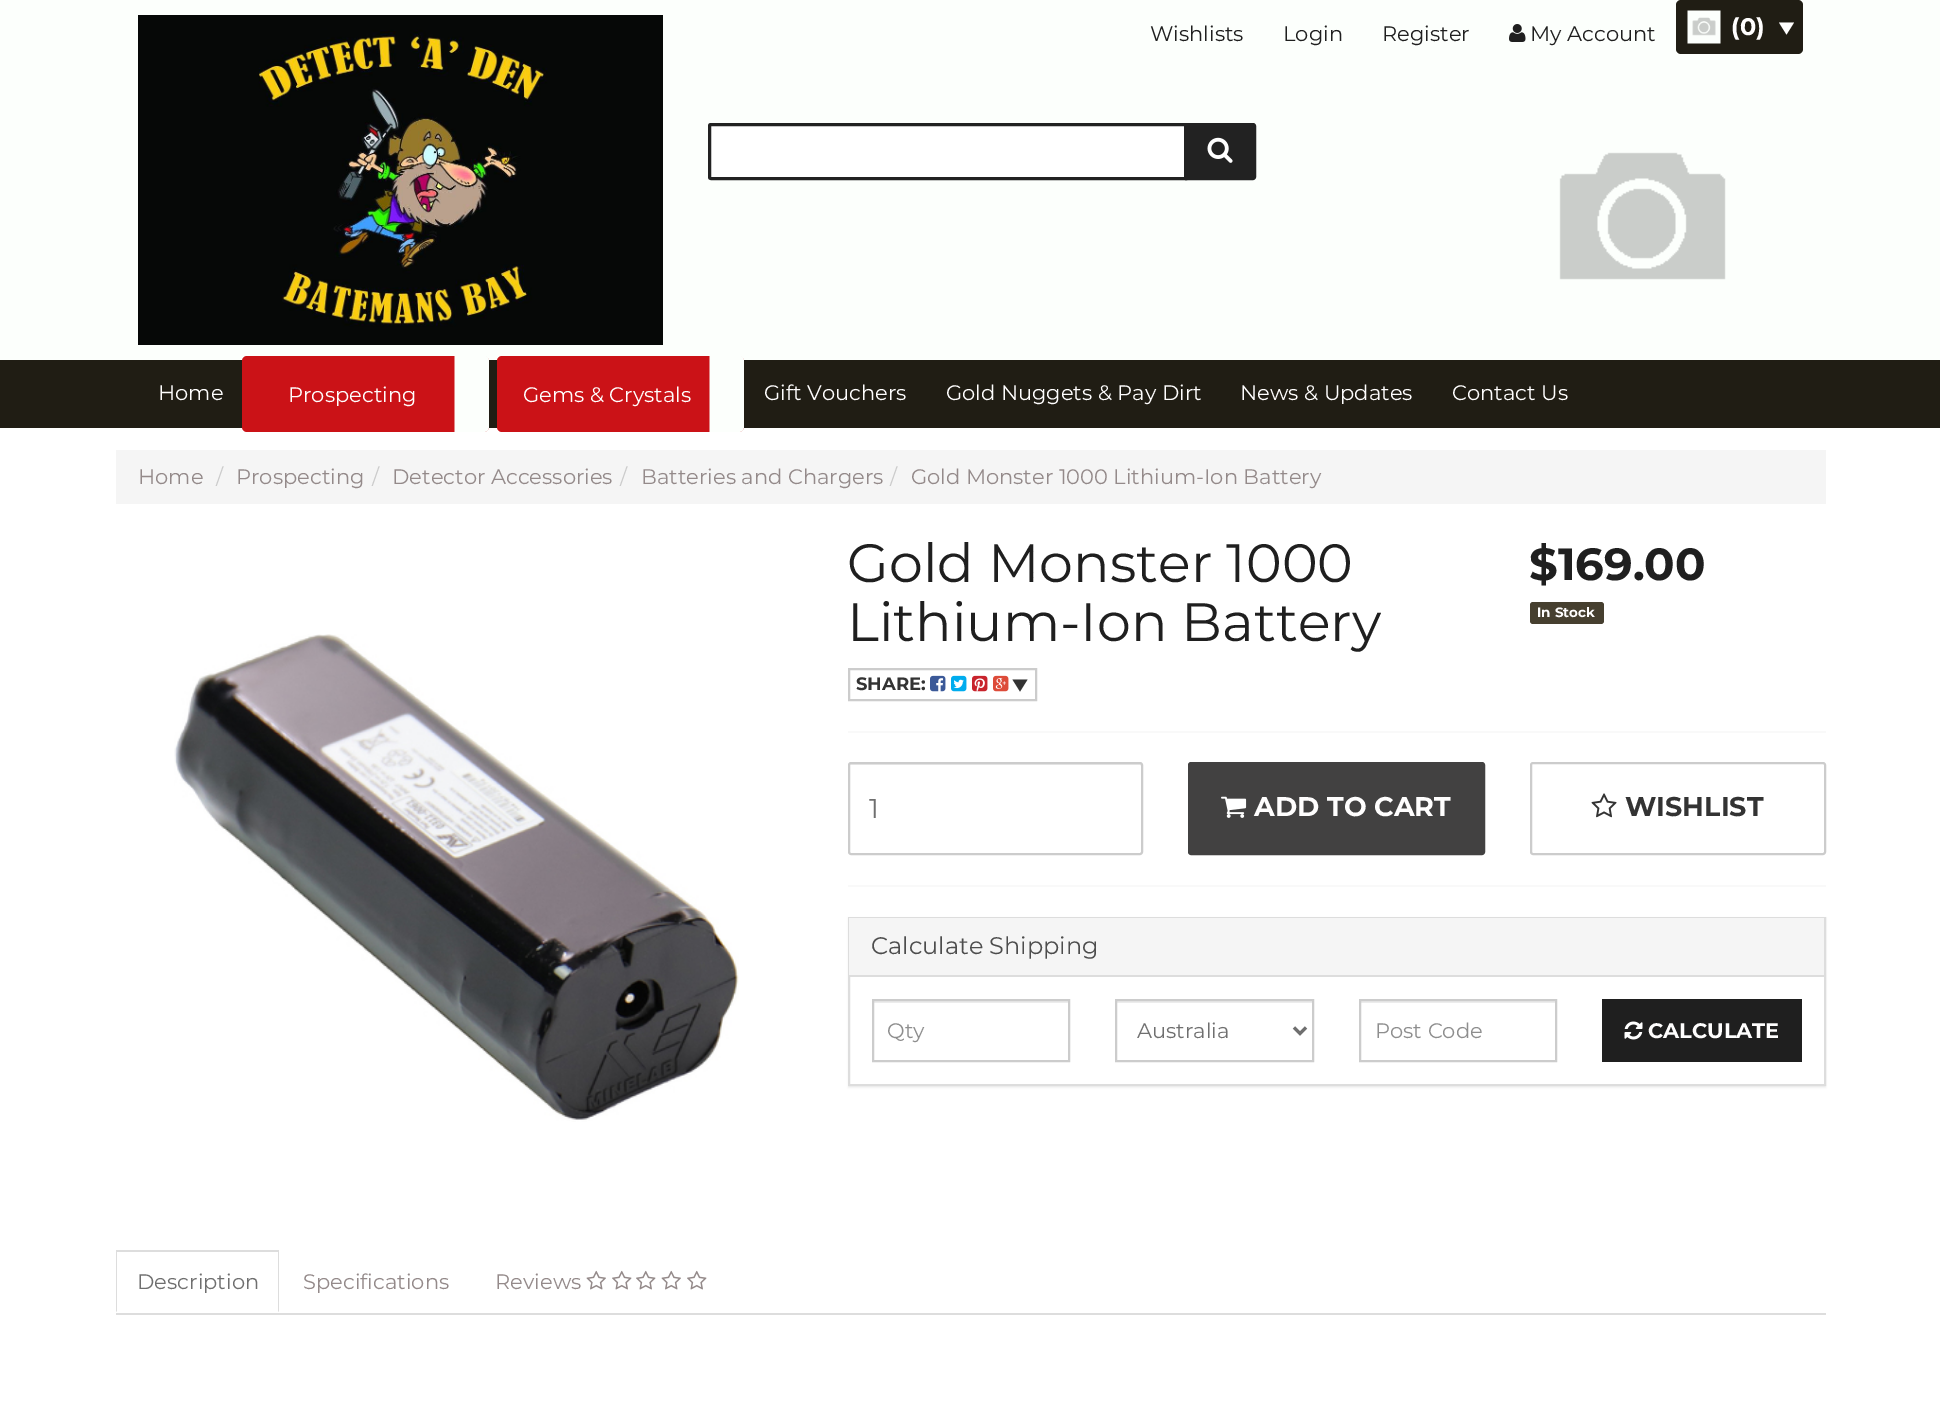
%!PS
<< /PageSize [1940 1404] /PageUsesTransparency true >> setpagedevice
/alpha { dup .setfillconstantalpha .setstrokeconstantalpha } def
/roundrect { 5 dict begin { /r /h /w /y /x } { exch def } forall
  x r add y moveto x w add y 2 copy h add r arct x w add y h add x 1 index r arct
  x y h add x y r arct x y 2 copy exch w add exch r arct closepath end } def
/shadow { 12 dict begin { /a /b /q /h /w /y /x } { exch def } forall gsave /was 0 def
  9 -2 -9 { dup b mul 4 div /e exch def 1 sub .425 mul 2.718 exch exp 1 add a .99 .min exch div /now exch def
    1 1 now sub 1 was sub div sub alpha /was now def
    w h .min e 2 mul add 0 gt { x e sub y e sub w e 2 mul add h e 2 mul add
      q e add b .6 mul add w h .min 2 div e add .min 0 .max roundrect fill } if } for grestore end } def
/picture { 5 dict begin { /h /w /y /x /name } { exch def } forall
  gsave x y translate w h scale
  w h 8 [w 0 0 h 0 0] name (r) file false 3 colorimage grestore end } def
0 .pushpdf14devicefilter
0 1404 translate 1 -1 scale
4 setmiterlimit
1 setgray
0 0 1940 1404 rectfill
0.988 1 0.988 setrgbcolor
0 0 1940 360 rectfill
(img1.rgb) 138 15 525 330 picture
/Montserrat-Regular [21 0 0 -21 0 0] selectfont
0.122 setgray
1150 41 moveto (Wishlists) show
1283 41 moveto (Login) show
1382 41 moveto (Register) show
(img2.rgb) 1509 24 17 18 picture
1530 41 moveto (My Account) show
0.125 0.114 0.078 setrgbcolor
1676 0 127 54 5 roundrect fill
(img3.rgb) 1687 10 34 34 picture
/Montserrat-Bold [24 0 0 -24 0 0] selectfont
1 0.996 0.996 setrgbcolor
1731 35 moveto (\(0\)) show
newpath 1779 22.5 moveto 1794 22.5 lineto 1786.5 34.5 lineto closepath fill
0.133 setgray
newpath 1186 124 moveto 1253 124 lineto 1254 124 1255 125 1255 126 curveto 1255 177 lineto 1255 178 1254 179 1253 179 curveto 1186 179 lineto closepath gsave fill grestore
2 setlinewidth
stroke
1 setgray
newpath 711 124.5 moveto 1185.5 124.5 lineto 1185.5 178.5 lineto 711 178.5 lineto 710 178.5 709.5 178 709.5 177 curveto 709.5 126 lineto 709.5 125 710 124.5 711 124.5 curveto closepath gsave fill grestore
0.133 setgray
3 setlinewidth
stroke
(img4.rgb) 1207 137 26 26 picture
(img5.rgb) 1559 152 167 128 picture
0.125 0.114 0.078 setrgbcolor
0 360 1940 68 rectfill
/Montserrat-Regular [21 0 0 -21 0 0] selectfont
1 0.996 0.996 setrgbcolor
158 400 moveto (Home) show
0.796 0.071 0.09 setrgbcolor
242 356 247 76 5 roundrect fill
(img6.rgb) 454 356 35 76 picture
1 0.996 0.996 setrgbcolor
288 402 moveto (Prospecting) show
0.796 0.071 0.09 setrgbcolor
497 356 247 76 5 roundrect fill
(img6.rgb) 709 356 35 76 picture
1 0.996 0.996 setrgbcolor
523 402 moveto (Gems & Crystals) show
764 400 moveto (Gift Vouchers) show
946 400 moveto (Gold Nuggets & Pay Dirt) show
1240 400 moveto (News & Updates) show
1452 400 moveto (Contact Us) show
0.961 setgray
116 450 1710 54 rectfill
0.58 0.541 0.541 setrgbcolor
138 484 moveto (Home) show
0.8 setgray
216 484 moveto (/) show
0.58 0.541 0.541 setrgbcolor
236 484 moveto (Prospecting) show
0.8 setgray
372 484 moveto (/) show
0.58 0.541 0.541 setrgbcolor
392 484 moveto (Detector Accessories) show
0.8 setgray
620 484 moveto (/) show
0.58 0.541 0.541 setrgbcolor
641 484 moveto (Batteries and Chargers) show
0.8 setgray
890 484 moveto (/) show
0.58 0.541 0.541 setrgbcolor
911 484 moveto (Gold Monster 1000 Lithium-Ion Battery) show
(img7.rgb) 174 634 565 488 picture
/Montserrat-Regular [54 0 0 -54 0 0] selectfont
0.122 setgray
847 582 moveto (Gold Monster 1000) show
847 641 moveto (Lithium-Ion Battery) show
0.8 setgray
2 setlinewidth
849 669 187 31 rectstroke
/Montserrat-Bold [18 0 0 -18 0 0] selectfont
0.2 setgray
856 690 moveto (SHARE:) show
(img8.rgb) 930 675 16 17 picture
(img9.rgb) 951 675 16 17 picture
(img10.rgb) 972 675 16 17 picture
(img11.rgb) 993 675 16 17 picture
newpath 1012.5 679.5 moveto 1027.5 679.5 lineto 1020 691.5 lineto closepath fill
/Montserrat-Bold [45 0 0 -45 0 0] selectfont
0.122 setgray
1529 580 moveto ($169.00) show
0.275 0.247 0.184 setrgbcolor
1530 602 74 22 3 roundrect fill
/Montserrat-Bold [13.5 0 0 -13.5 0 0] selectfont
1 0.996 0.996 setrgbcolor
1537 617 moveto (In Stock) show
0.976 setgray
848 731 978 2 rectfill
0.925 setgray
newpath 850 765 moveto 1140 765 lineto 1142 766 lineto 1142 765 1142 764 1140 764 curveto 850 764 lineto 849 765 lineto 849 766 lineto closepath fill
0.8 setgray
849 763 293 91 2 roundrect stroke
/Montserrat-Regular [27 0 0 -27 0 0] selectfont
0.435 setgray
869 818 moveto (1) show
0.259 0.255 0.255 setrgbcolor
1189 763 295 91 2 roundrect gsave fill grestore
stroke
(img12.rgb) 1221 796 26 22 picture
/Montserrat-Bold [27 0 0 -27 0 0] selectfont
1 0.996 0.996 setrgbcolor
1254 816 moveto (ADD TO CART) show
0.8 setgray
1531 763 294 91 2 roundrect stroke
(img13.rgb) 1591 793 26 25 picture
0.2 setgray
1625 816 moveto (WISHLIST) show
0.976 setgray
848 885 978 2 rectfill
0 setgray
848 918 978 170 0 1 0.05 shadow
1 setgray
850 977 974 107 rectfill
0.867 setgray
849 918 976 167 rectstroke
0.961 setgray
849 918 975 57 rectfill
0.867 setgray
849 975 975 2 rectfill
/Montserrat-Regular [24 0 0 -24 0 0] selectfont
0.302 setgray
871 954 moveto (Calculate Shipping) show
0.925 setgray
873 1001 195 2 rectfill
0.8 setgray
873 1000 196 61 rectstroke
/Montserrat-Regular [21 0 0 -21 0 0] selectfont
0.557 setgray
887 1038 moveto (Qty) show
0.925 setgray
1116 1001 197 2 rectfill
0.8 setgray
1116 1000 197 61 rectstroke
0.435 setgray
3 setlinewidth
newpath 1294 1027.5 moveto 1300 1033.5 lineto 1306 1027.5 lineto stroke
1137 1038 moveto (Australia) show
0.925 setgray
1361 1001 195 2 rectfill
0.8 setgray
2 setlinewidth
1360 1000 196 61 rectstroke
0.557 setgray
1375 1038 moveto (Post Code) show
0.122 setgray
1602 999 200 63 rectfill
(img14.rgb) 1624 1021 19 19 picture
/Montserrat-Bold [21 0 0 -21 0 0] selectfont
1 0.996 0.996 setrgbcolor
1648 1038 moveto (CALCULATE) show
0.867 setgray
116 1313 1710 2 rectfill
116 1250 163 2 rectfill
newpath 279 1250 moveto 279 1312 lineto 278 1311 lineto 278 1251 lineto closepath fill
newpath 116 1312 moveto 116 1250 lineto 117 1251 lineto 117 1311 lineto closepath fill
/Montserrat-Regular [21 0 0 -21 0 0] selectfont
0.435 setgray
137 1289 moveto (Description) show
0.58 0.541 0.541 setrgbcolor
303 1289 moveto (Specifications) show
495 1289 moveto (Reviews) show
(img15.rgb) 586 1270 20 20 picture
(img16.rgb) 612 1270 20 20 picture
(img16.rgb) 636 1270 20 20 picture
(img15.rgb) 661 1270 20 20 picture
(img16.rgb) 687 1270 20 20 picture
.poppdf14devicefilter showpage
